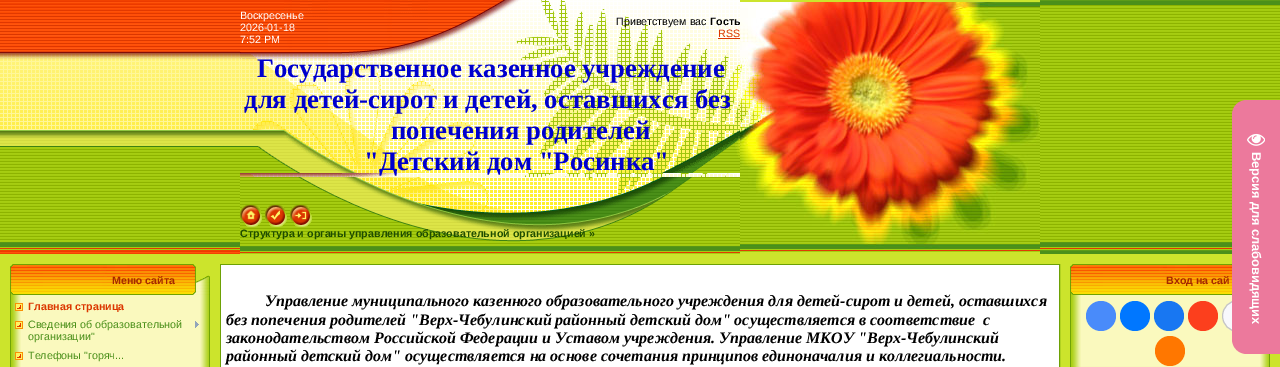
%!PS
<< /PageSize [1280 367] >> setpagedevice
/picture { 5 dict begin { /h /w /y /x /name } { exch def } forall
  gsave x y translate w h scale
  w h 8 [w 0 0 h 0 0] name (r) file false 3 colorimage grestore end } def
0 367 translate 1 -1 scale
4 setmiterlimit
0.8 0.894 0.173 setrgbcolor
0 0 1280 367 rectfill
(img1.rgb) 0 0 240 254 picture
(img2.rgb) 240 0 500 53 picture
/LiberationSans-Regular [10.7 0 0 -10.7 0 0] selectfont
1 setgray
240 19 moveto (Воскресенье) show
240 31 moveto (2026-01-18) show
240 43 moveto (7:52 PM) show
0 setgray
616 25 moveto (Приветствуем вас) show
/LiberationSans-Bold [10.7 0 0 -10.7 0 0] selectfont
710 25 moveto (Гость) show
/LiberationSans-Regular [10.7 0 0 -10.7 0 0] selectfont
0.863 0.216 0 setrgbcolor
718 37 moveto (RSS) show
718 38 22 1 rectfill
(img3.rgb) 740 2 300 250 picture
(img4.rgb) 1040 0 240 254 picture
(img5.rgb) 240 53 500 124 picture
/LiberationSerif-Bold [26.7 0 0 -26.7 0 0] selectfont
0 0 0.804 setrgbcolor
257 77 moveto (Государственное казенное учреждение) show
244 108 moveto (для детей-сирот и детей, оставшихся без) show
391 139 moveto (попечения родителей) show
364 170 moveto ("Детский дом "Росинка") show
(img6.rgb) 240 177 500 77 picture
(img7.rgb) 240 205 22 22 picture
(img8.rgb) 265 205 22 22 picture
(img9.rgb) 290 205 22 22 picture
/LiberationSans-Bold [10.7 0 0 -10.7 0 0] selectfont
0.122 0.302 0 setrgbcolor
240 237 moveto (Структура и органы управления образовательной организацией ») show
(img16.rgb) 1070 295 200 71 picture
0.973 0.973 0.988 setrgbcolor
newpath 1238 316 15.5 0 360 arc closepath gsave fill grestore
0.769 setgray
stroke
0.925 0.475 0.612 setrgbcolor
newpath 1247 100 moveto 1280 100 lineto 1280 354 lineto 1247 354 lineto 1238.5 354 1232 347.5 1232 339 curveto 1232 115 lineto 1232 106.5 1238.5 100 1247 100 curveto closepath fill
(img10.rgb) 1247 133 18 13 picture
/LiberationSans-Bold [12.75 0 0 -12.75 0 0] selectfont
1 setgray
gsave 1252 152 translate 90 rotate 0 0 moveto (Версия для слабовидящих) show grestore
(img11.rgb) 10 264 200 31 picture
/LiberationSans-Bold [10.7 0 0 -10.7 0 0] selectfont
0.643 0.161 0 setrgbcolor
112 284 moveto (Меню сайта) show
(img12.rgb) 10 295 200 72 picture
(img13.rgb) 15 303 8 8 picture
0.863 0.216 0 setrgbcolor
28 310 moveto (Главная страница) show
(img13.rgb) 15 321 8 8 picture
/LiberationSans-Regular [10.7 0 0 -10.7 0 0] selectfont
0.294 0.565 0.102 setrgbcolor
28 328 moveto (Сведения об образовательной) show
(img14.rgb) 195 321 4 7 picture
28 340 moveto (организации") show
(img13.rgb) 15 352 8 8 picture
28 359 moveto (Телефоны "горяч...) show
(img15.rgb) 1070 264 162 31 picture
/LiberationSans-Bold [10.7 0 0 -10.7 0 0] selectfont
0.643 0.161 0 setrgbcolor
1166 284 moveto (Вход на сай) show
0.286 0.545 0.98 setrgbcolor
newpath 1101 316 15 0 360 arc closepath fill
0 0.467 1 setrgbcolor
newpath 1135 316 15 0 360 arc closepath fill
0.094 0.467 0.949 setrgbcolor
newpath 1169 316 15 0 360 arc closepath fill
0.988 0.247 0.114 setrgbcolor
newpath 1203 316 15 0 360 arc closepath fill
1 0.467 0 setrgbcolor
newpath 1170 351 15 0 360 arc closepath fill
(img17.rgb) 1070 366 200 1 picture
0.427 0.631 0.016 setrgbcolor
220.5 264.5 839 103 rectstroke
1 setgray
221 265 838 102 rectfill
/LiberationSerif-BoldItalic [16 0 0 -16 0 0] selectfont
0 setgray
265 306 moveto (Управление муниципального казенного образовательного учреждения для детей-сирот и детей, оставшихся) show
226 325 moveto (без попечения родителей "Верх-Чебулинский районный детский дом" осуществляется в соответствие  с) show
226 343 moveto (законодательством Российской Федерации и Уставом учреждения. Управление МКОУ "Верх-Чебулинский) show
226 361 moveto (районный детский дом" осуществляется на основе сочетания принципов единоначалия и коллегиальности.) show
showpage
